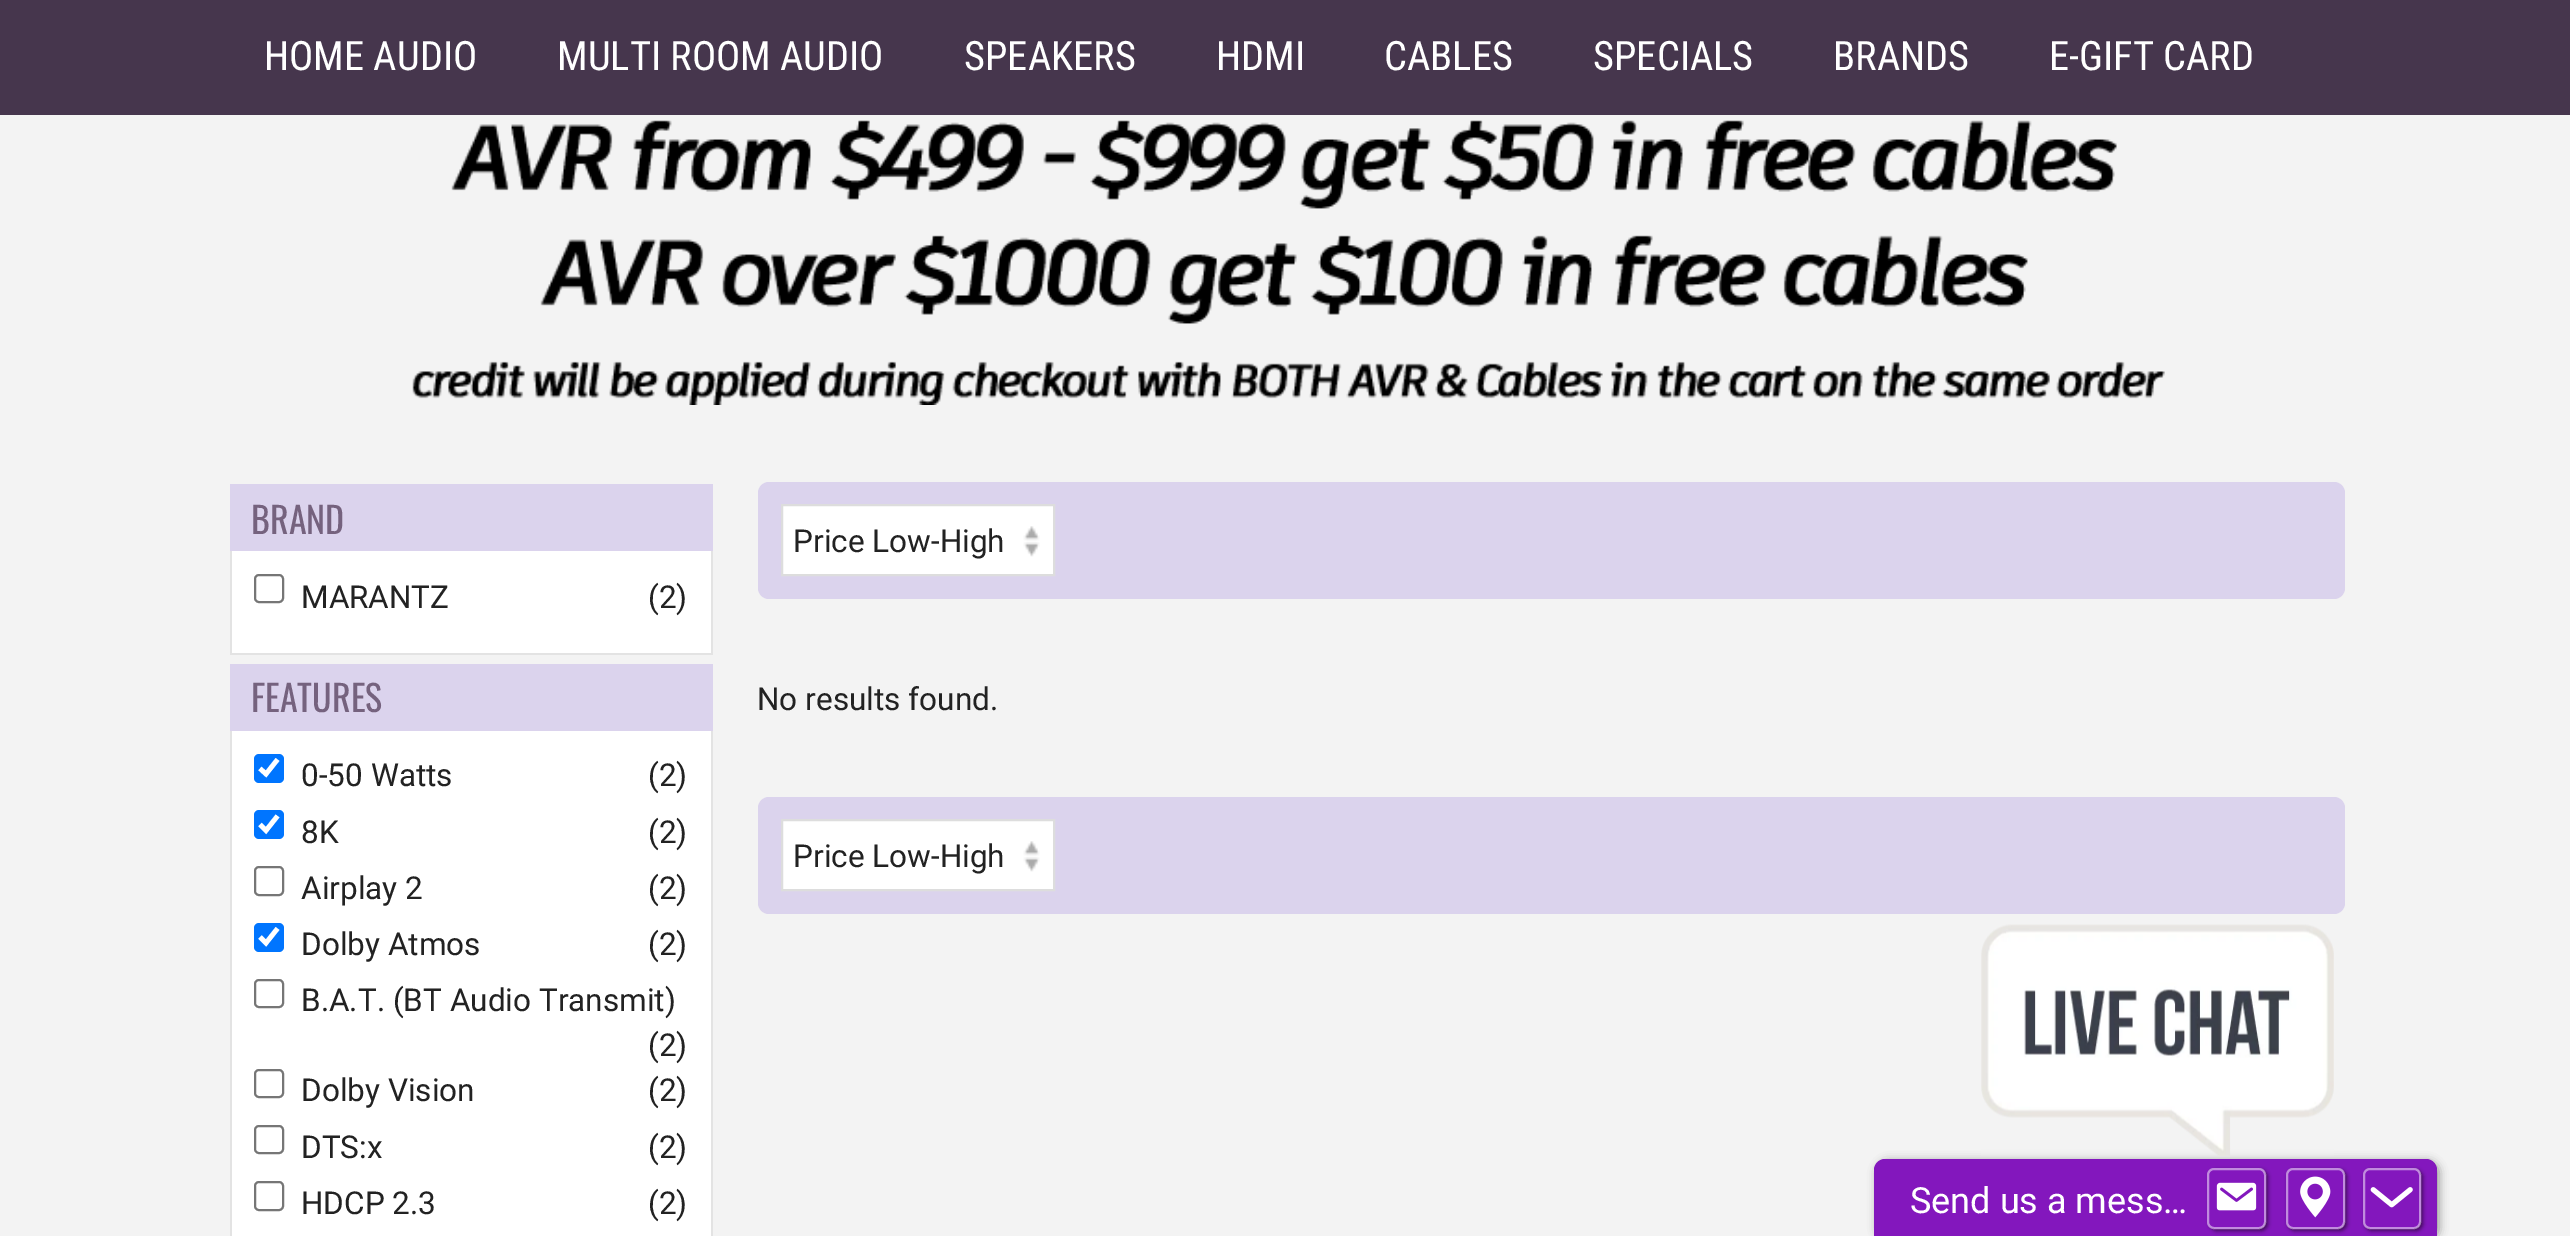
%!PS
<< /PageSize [2570 1236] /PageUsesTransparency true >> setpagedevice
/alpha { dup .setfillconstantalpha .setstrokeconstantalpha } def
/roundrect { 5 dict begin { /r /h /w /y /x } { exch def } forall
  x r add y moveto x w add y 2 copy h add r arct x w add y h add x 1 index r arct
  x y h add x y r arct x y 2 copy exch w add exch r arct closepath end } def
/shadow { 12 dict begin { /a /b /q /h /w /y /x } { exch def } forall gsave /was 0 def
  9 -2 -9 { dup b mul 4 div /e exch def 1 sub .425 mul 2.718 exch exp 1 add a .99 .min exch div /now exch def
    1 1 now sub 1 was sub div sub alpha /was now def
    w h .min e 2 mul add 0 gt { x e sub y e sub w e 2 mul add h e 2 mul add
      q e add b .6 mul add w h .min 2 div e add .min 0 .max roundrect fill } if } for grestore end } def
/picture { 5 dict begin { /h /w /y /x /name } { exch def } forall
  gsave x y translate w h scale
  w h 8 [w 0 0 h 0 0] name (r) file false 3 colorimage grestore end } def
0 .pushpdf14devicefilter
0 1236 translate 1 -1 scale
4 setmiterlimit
0.953 setgray
0 0 2570 1236 rectfill
0.275 0.212 0.302 setrgbcolor
0 0 2570 115 rectfill
/RobotoCondensed-Regular [40.5 0 0 -40.5 0 0] selectfont
1 setgray
264 70 moveto (HOME AUDIO) show
557 70 moveto (MULTI ROOM AUDIO) show
964 70 moveto (SPEAKERS) show
1216 70 moveto (HDMI) show
1384 70 moveto (CABLES) show
1593 70 moveto (SPECIALS) show
1833 70 moveto (BRANDS) show
2049 70 moveto (E-GIFT CARD) show
(img1.rgb) 412 120 1753 285 picture
0.859 0.827 0.929 setrgbcolor
230 484 483 67 rectfill
/Oswald-Regular [36 0 0 -36 0 0] selectfont
0.459 0.384 0.494 setrgbcolor
251 534 moveto (BRAND) show
1 setgray
232 551 479 102 rectfill
0.89 setgray
711 551 2 104 rectfill
230 653 483 2 rectfill
230 551 2 104 rectfill
0.463 setgray
2 setlinewidth
255 575 28 27 4 roundrect stroke
/Roboto-Regular [31.5 0 0 -31.5 0 0] selectfont
0.133 setgray
301 608 moveto (MARANTZ) show
648 608 moveto (\(2\)) show
0.859 0.827 0.929 setrgbcolor
230 664 483 67 rectfill
/Oswald-Regular [36 0 0 -36 0 0] selectfont
0.459 0.384 0.494 setrgbcolor
251 712 moveto (FEATURES) show
1 setgray
232 731 479 505 rectfill
0.89 setgray
711 731 2 505 rectfill
230 731 2 505 rectfill
0 0.459 1 setrgbcolor
254 754 30 29 5 roundrect fill
1 setgray
4.7 setlinewidth
newpath 260 768.5 moveto 266 774 lineto 277.5 759.5 lineto stroke
/Roboto-Regular [31.5 0 0 -31.5 0 0] selectfont
0.133 setgray
301 786 moveto (0-50 Watts) show
648 786 moveto (\(2\)) show
0 0.459 1 setrgbcolor
254 810 30 29 5 roundrect fill
1 setgray
newpath 260 824.5 moveto 266 830.5 lineto 277.5 816 lineto stroke
0.133 setgray
301 843 moveto (8K) show
648 843 moveto (\(2\)) show
0.463 setgray
2 setlinewidth
255 867 28 28 4 roundrect stroke
0.133 setgray
301 899 moveto (Airplay 2) show
648 899 moveto (\(2\)) show
0 0.459 1 setrgbcolor
254 923 30 29 5 roundrect fill
1 setgray
4.7 setlinewidth
newpath 260 937 moveto 266 943 lineto 277.5 928.5 lineto stroke
0.133 setgray
301 955 moveto (Dolby Atmos) show
648 955 moveto (\(2\)) show
0.463 setgray
2 setlinewidth
255 980 28 27 4 roundrect stroke
0.133 setgray
301 1011 moveto (B.A.T. \(BT Audio Transmit\)) show
648 1056 moveto (\(2\)) show
0.463 setgray
255 1070 28 27 4 roundrect stroke
0.133 setgray
301 1101 moveto (Dolby Vision) show
648 1101 moveto (\(2\)) show
0.463 setgray
255 1126 28 27 4 roundrect stroke
0.133 setgray
301 1158 moveto (DTS:x) show
648 1158 moveto (\(2\)) show
0.463 setgray
255 1182 28 28 4 roundrect stroke
0.133 setgray
301 1214 moveto (HDCP 2.3) show
648 1214 moveto (\(2\)) show
0.859 0.827 0.929 setrgbcolor
758 482 1587 117 11 roundrect fill
1 setgray
783 506 270 68 rectfill
(img2.rgb) 1023 526 17 31 picture
0.867 setgray
782 505 272 70 rectstroke
0.133 setgray
793 552 moveto (Price Low-High) show
757 710 moveto (No results found.) show
0.859 0.827 0.929 setrgbcolor
758 797 1587 117 11 roundrect fill
1 setgray
783 821 270 68 rectfill
(img2.rgb) 1023 841 17 31 picture
0.867 setgray
782 820 272 70 rectstroke
0.133 setgray
793 867 moveto (Price Low-High) show
0 setgray
1877 1161 562 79 11 4.5 0.4 shadow
(img3.rgb) 1981 924 353 232 picture
0.514 0.09 0.741 setrgbcolor
newpath 1885 1159 moveto 2426 1159 lineto 2432 1159 2437 1164 2437 1170 curveto 2437 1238 lineto 1874 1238 lineto 1874 1170 lineto 1874 1164 1879 1159 1885 1159 curveto closepath fill
/Roboto-Regular [36 0 0 -36 0 0] selectfont
1 setgray
1910 1213 moveto (Send us a mess…) show
gsave
newpath 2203 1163 moveto 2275 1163 lineto 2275 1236 lineto 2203 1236 lineto closepath 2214 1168 moveto 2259 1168 lineto 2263 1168 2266 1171 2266 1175 curveto 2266 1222 lineto 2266 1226 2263 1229 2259 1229 curveto 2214 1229 lineto 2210 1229 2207 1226 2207 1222 curveto 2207 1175 lineto 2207 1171 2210 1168 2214 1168 curveto closepath eoclip newpath
0 setgray
2210 1170 58 61 7 2 0.5 shadow
grestore
0.5 alpha
2208 1169 57 59 6 roundrect stroke
1 alpha
(img4.rgb) 2216 1182 41 29 picture
gsave
newpath 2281 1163 moveto 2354 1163 lineto 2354 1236 lineto 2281 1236 lineto closepath 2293 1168 moveto 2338 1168 lineto 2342 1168 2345 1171 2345 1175 curveto 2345 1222 lineto 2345 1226 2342 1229 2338 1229 curveto 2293 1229 lineto 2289 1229 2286 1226 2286 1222 curveto 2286 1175 lineto 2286 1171 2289 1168 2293 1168 curveto closepath eoclip newpath
0 setgray
2288 1170 59 61 7 2 0.5 shadow
grestore
0.5 alpha
2287 1169 57 59 6 roundrect stroke
1 alpha
(img5.rgb) 2300 1176 31 42 picture
gsave
newpath 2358 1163 moveto 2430 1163 lineto 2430 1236 lineto 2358 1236 lineto closepath 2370 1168 moveto 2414 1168 lineto 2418 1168 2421 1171 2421 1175 curveto 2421 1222 lineto 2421 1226 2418 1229 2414 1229 curveto 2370 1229 lineto 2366 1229 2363 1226 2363 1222 curveto 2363 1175 lineto 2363 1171 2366 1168 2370 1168 curveto closepath eoclip newpath
0 setgray
2365 1170 58 61 7 2 0.5 shadow
grestore
0.5 alpha
2364 1169 56 59 6 roundrect stroke
1 alpha
(img6.rgb) 2370 1187 43 21 picture
.poppdf14devicefilter showpage
